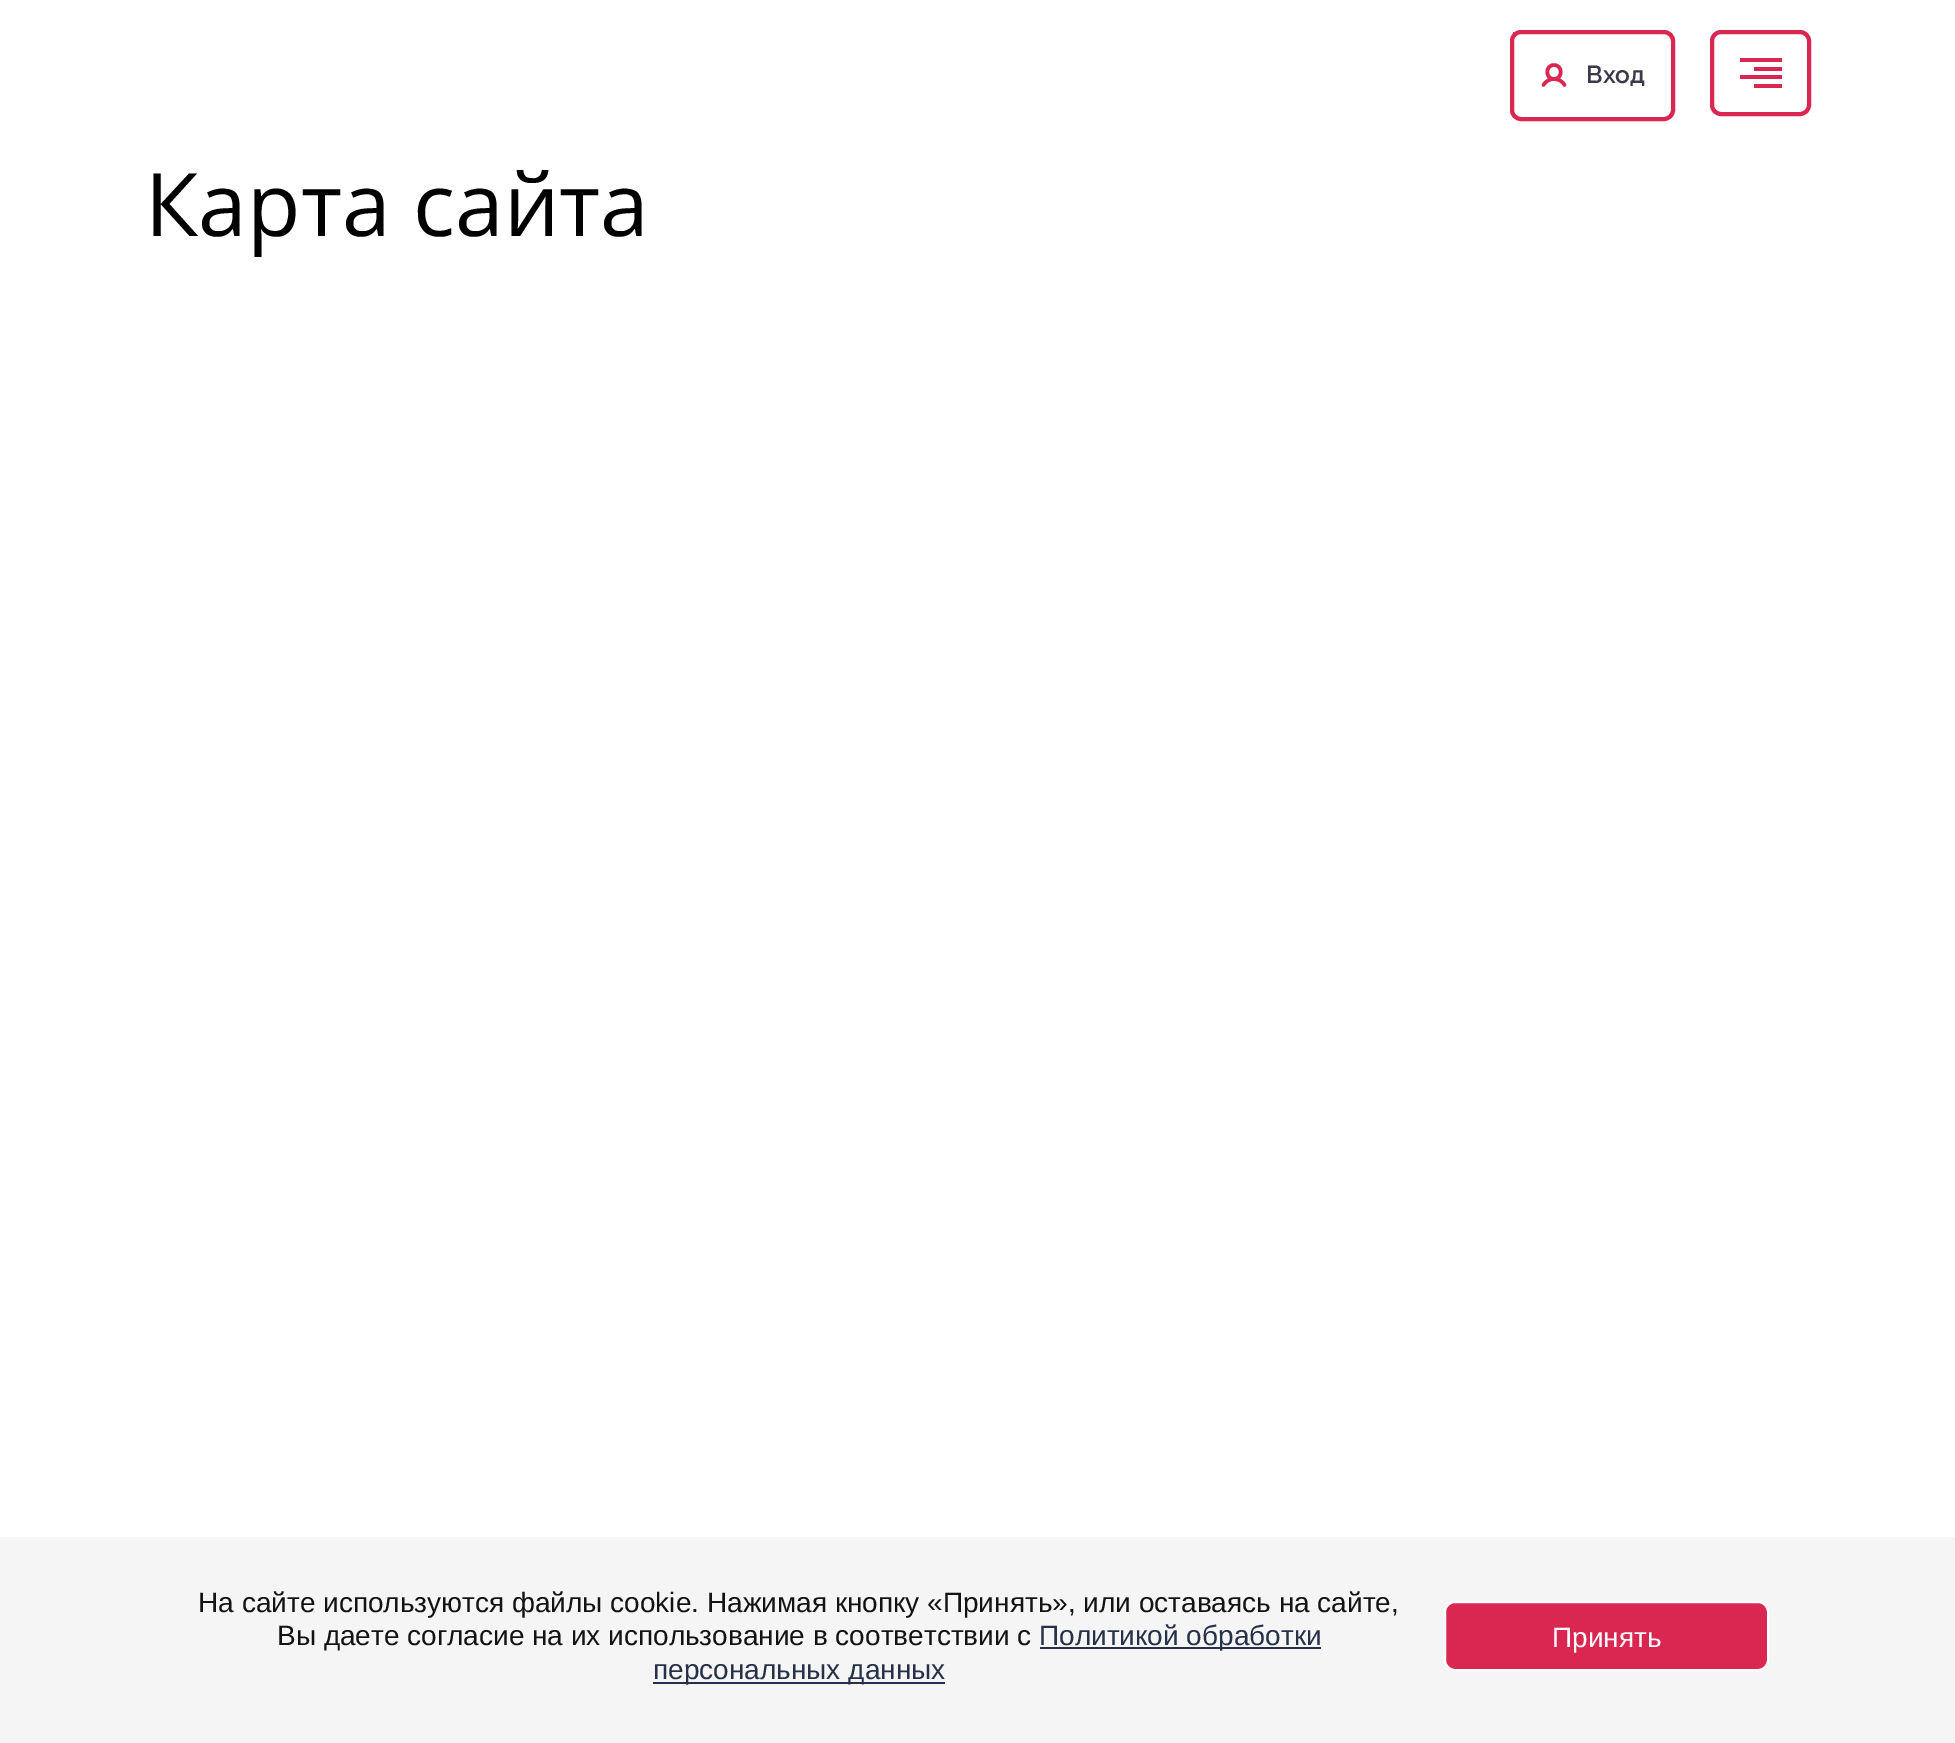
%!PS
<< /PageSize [1955 1743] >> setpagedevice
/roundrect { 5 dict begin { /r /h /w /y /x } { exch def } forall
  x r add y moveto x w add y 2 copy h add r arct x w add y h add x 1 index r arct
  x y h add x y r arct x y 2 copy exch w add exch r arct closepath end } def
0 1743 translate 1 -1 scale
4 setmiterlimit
1 setgray
0 0 1955 1743 rectfill
gsave
1510 30 165 91 11 roundrect clip newpath
gsave newpath 1510 32 moveto 1514 32 lineto 1514 33 lineto 1510 33 lineto closepath clip newpath
<< /ShadingType 2 /ColorSpace /DeviceRGB /Coords [1122 126 1433 -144] /Extend [true true] /Function << /FunctionType 3 /Domain [0 1] /Functions [<< /FunctionType 2 /Domain [0 1] /C0 [1 1 1] /C1 [1 1 1] /N 1 >> << /FunctionType 2 /Domain [0 1] /C0 [1 1 1] /C1 [0.851 0.153 0.322] /N 1 >> << /FunctionType 2 /Domain [0 1] /C0 [0.851 0.153 0.322] /C1 [0.851 0.153 0.322] /N 1 >>] /Bounds [0.4 0.6] /Encode [0 1 0 1 0 1] >> >> shfill grestore
gsave newpath 1514 33 moveto 1675 33 lineto 1675 117 lineto 1514 117 lineto closepath clip newpath
<< /ShadingType 2 /ColorSpace /DeviceRGB /Coords [1595 210 1905 -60] /Extend [true true] /Function << /FunctionType 3 /Domain [0 1] /Functions [<< /FunctionType 2 /Domain [0 1] /C0 [1 1 1] /C1 [1 1 1] /N 1 >> << /FunctionType 2 /Domain [0 1] /C0 [1 1 1] /C1 [0.851 0.153 0.322] /N 1 >> << /FunctionType 2 /Domain [0 1] /C0 [0.851 0.153 0.322] /C1 [0.851 0.153 0.322] /N 1 >>] /Bounds [0.4 0.6] /Encode [0 1 0 1 0 1] >> >> shfill grestore
grestore
0.851 0.153 0.322 setrgbcolor
4 setlinewidth
1512 32 161 87 9 roundrect stroke
3.5 setlinewidth
newpath 1554 79 moveto 1563 79 1563 65 1554 65 curveto 1545 65 1545 79 1554 79 curveto closepath stroke
1 setlinecap
1 setlinejoin
newpath 1543.5 85 moveto 1548 77 1560 77 1564.5 85 curveto stroke
/Raleway-SemiBold [24.5 0 0 -24.5 0 0] selectfont
0.224 0.224 0.294 setrgbcolor
1586 83 moveto (Вход) show
0.851 0.153 0.322 setrgbcolor
4 setlinewidth
0 setlinecap
0 setlinejoin
1712 32 97 82 9 roundrect stroke
1740 58 42 4 rectfill
1754 67 28 4 rectfill
1740 75 42 4 rectfill
1754 84 28 4 rectfill
/OpenSans-Regular [87.5 0 0 -87.5 0 0] selectfont
0 setgray
145 236 moveto (Карта сайта) show
0.961 setgray
0 1537 1955 206 rectfill
/LiberationSans-Regular [28 0 0 -28 0 0] selectfont
0.071 0.075 0.078 setrgbcolor
198 1612 moveto (На сайте используются файлы cookie. Нажимая кнопку «Принять», или оставаясь на сайте,) show
277 1645 moveto (Вы даете согласие на их использование в соответствии с) show
0.149 0.188 0.286 setrgbcolor
1040 1647 281 2 rectfill
1039 1645 moveto (Политикой обработки) show
653 1682 292 2 rectfill
653 1679 moveto (персональных данных) show
0.851 0.153 0.322 setrgbcolor
1445 1602 323 68 10 roundrect gsave fill grestore
1 setgray
2 setlinewidth
stroke
1552 1647 moveto (Принять) show
showpage
